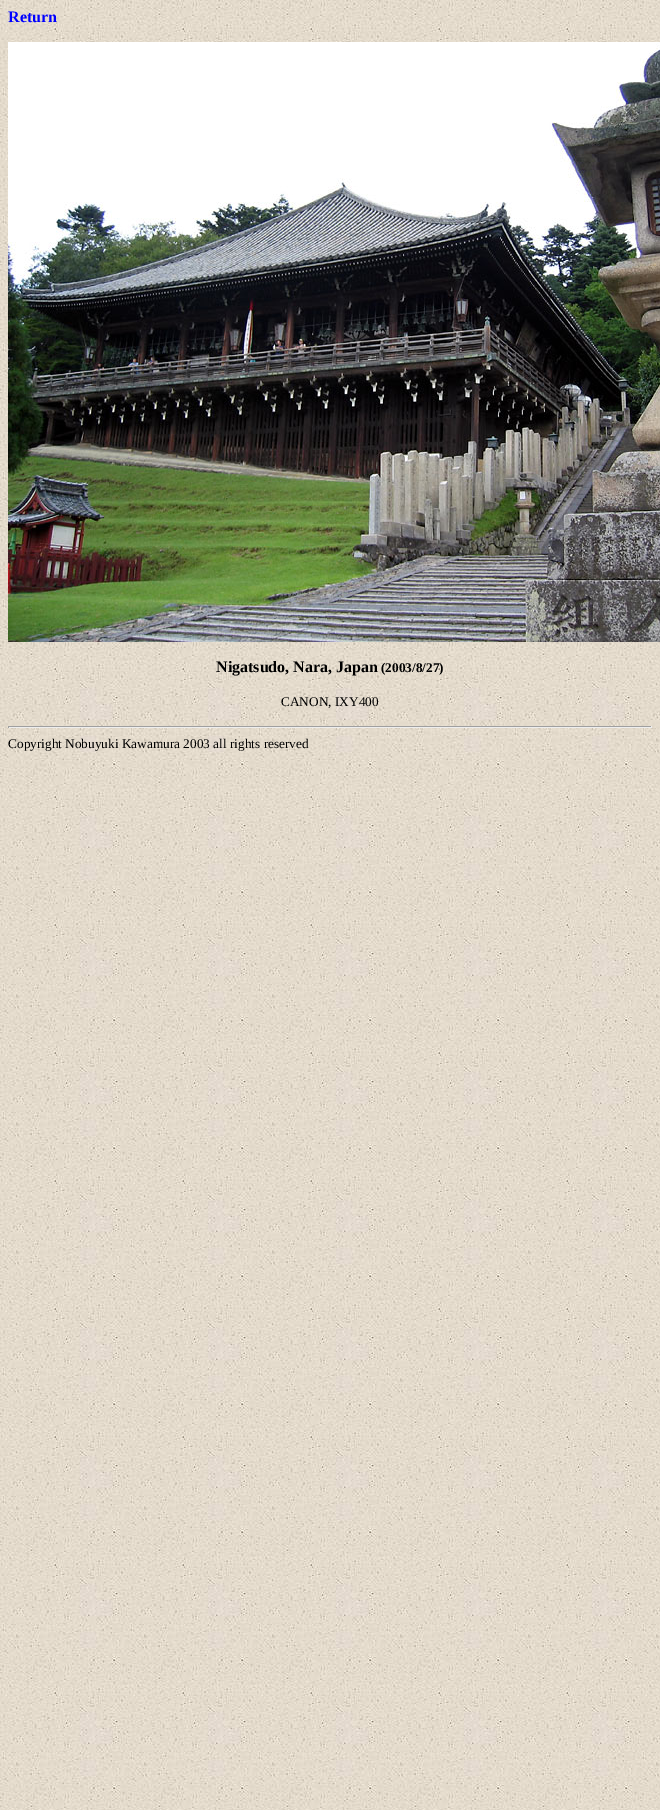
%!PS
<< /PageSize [660 1810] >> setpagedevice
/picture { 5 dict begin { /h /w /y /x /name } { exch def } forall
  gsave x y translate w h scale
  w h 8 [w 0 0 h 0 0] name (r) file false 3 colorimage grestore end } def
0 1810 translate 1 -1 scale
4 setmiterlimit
1 setgray
0 0 660 1810 rectfill
(img1.rgb) 0 0 660 1810 picture
/LiberationSerif-Bold [16 0 0 -16 0 0] selectfont
0 0 1 setrgbcolor
8 22 moveto (Return) show
(img2.rgb) 8 42 652 600 picture
0 setgray
216 672 moveto (Nigatsudo, Nara, Japan) show
/LiberationSerif-Bold [13.3 0 0 -13.3 0 0] selectfont
381 672 moveto (\(2003/8/27\)) show
/LiberationSerif-Regular [13.3 0 0 -13.3 0 0] selectfont
281 706 moveto (CANON, IXY400) show
0.624 setgray
8 726 644 1 rectfill
0.933 setgray
651 726 1 2 rectfill
8 727 644 1 rectfill
0.624 setgray
8 726 1 2 rectfill
0 setgray
8 748 moveto (Copyright Nobuyuki Kawamura 2003 all rights reserved) show
showpage
